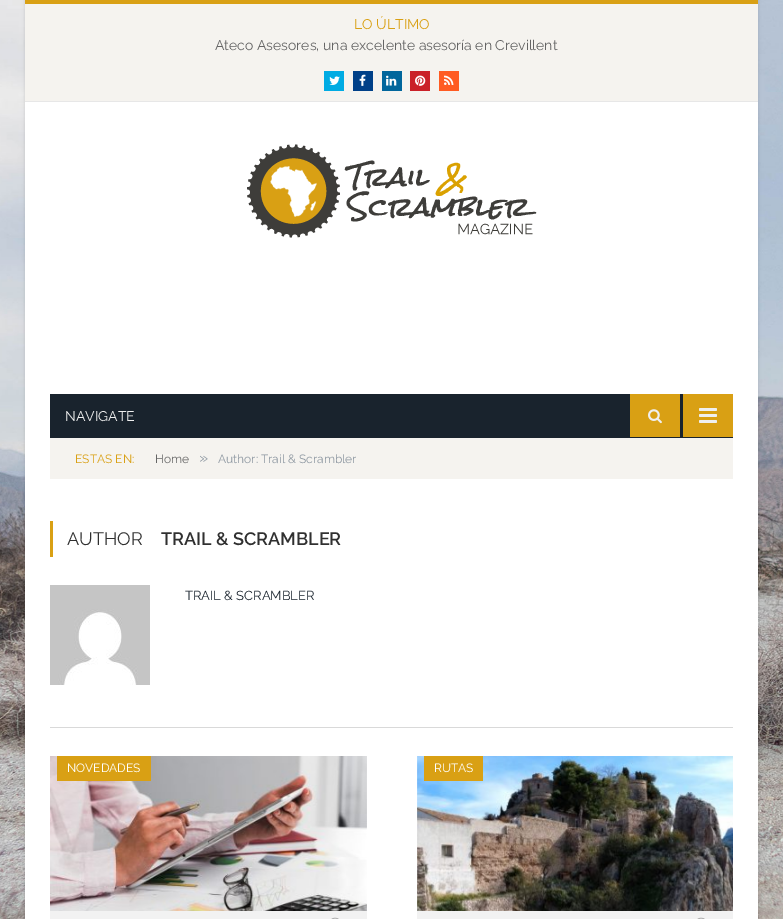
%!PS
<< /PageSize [783 919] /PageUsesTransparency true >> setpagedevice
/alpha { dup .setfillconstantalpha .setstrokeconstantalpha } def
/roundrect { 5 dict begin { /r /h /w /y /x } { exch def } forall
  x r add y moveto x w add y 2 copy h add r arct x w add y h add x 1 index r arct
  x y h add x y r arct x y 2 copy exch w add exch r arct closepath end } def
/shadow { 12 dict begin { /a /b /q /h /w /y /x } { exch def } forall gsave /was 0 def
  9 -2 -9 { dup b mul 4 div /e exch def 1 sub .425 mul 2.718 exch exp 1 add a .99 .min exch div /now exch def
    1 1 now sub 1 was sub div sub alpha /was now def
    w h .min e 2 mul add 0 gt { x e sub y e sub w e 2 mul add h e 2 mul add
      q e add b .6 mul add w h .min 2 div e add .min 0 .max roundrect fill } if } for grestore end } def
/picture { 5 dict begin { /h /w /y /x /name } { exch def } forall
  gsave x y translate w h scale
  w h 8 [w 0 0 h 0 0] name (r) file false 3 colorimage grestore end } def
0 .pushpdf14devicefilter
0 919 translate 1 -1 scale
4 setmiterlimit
1 setgray
0 0 783 919 rectfill
(img1.rgb) 0 0 783 919 picture
0 setgray
25 0 733 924 0 1.5 0.12 shadow
1 setgray
25 102 733 817 rectfill
0.961 0.953 0.937 setrgbcolor
25 4 733 97 rectfill
0.851 0.627 0.078 setrgbcolor
25 0 733 4 rectfill
0.906 setgray
25 101 733 1 rectfill
/Raleway-Regular [14 0 0 -14 0 0] selectfont
0.851 0.627 0.078 setrgbcolor
354 29 moveto (LO ÚLTIMO) show
0.396 setgray
215 50 moveto (Ateco Asesores, una excelente asesoría en Crevillent) show
0 0.671 0.89 setrgbcolor
324 71 20 20 rectfill
(img2.rgb) 329 76 11 9 picture
0 0.251 0.533 setrgbcolor
353 71 20 20 rectfill
(img3.rgb) 359 74 7 12 picture
0.004 0.4 0.612 setrgbcolor
382 71 20 20 rectfill
(img4.rgb) 386 75 11 11 picture
0.792 0.129 0.157 setrgbcolor
410 71 20 20 rectfill
(img5.rgb) 415 75 11 11 picture
1 0.357 0.133 setrgbcolor
439 71 20 20 rectfill
(img6.rgb) 444 75 10 10 picture
(img7.rgb) 247 144 290 94 picture
0.098 0.137 0.176 setrgbcolor
50 394 683 44 rectfill
0.937 setgray
65 421 moveto (NAVIGATE) show
0.851 0.627 0.078 setrgbcolor
630 394 50 43 rectfill
(img8.rgb) 648 409 14 15 picture
683 394 50 43 rectfill
(img9.rgb) 699 408 18 15 picture
0.961 0.953 0.937 setrgbcolor
50 438 683 41 rectfill
/Raleway-Regular [12 0 0 -12 0 0] selectfont
0.851 0.627 0.078 setrgbcolor
75 463 moveto (ESTAS EN:) show
0.396 setgray
155 463 moveto (Home) show
/Raleway-Regular [16 0 0 -16 0 0] selectfont
0.553 0.592 0.631 setrgbcolor
199 463 moveto (») show
/Raleway-Regular [12 0 0 -12 0 0] selectfont
218 463 moveto (Author: Trail & Scrambler) show
0.851 0.627 0.078 setrgbcolor
50 521 3 36 rectfill
/Raleway-Regular [18 0 0 -18 0 0] selectfont
0.188 setgray
67 545 moveto (AUTHOR) show
/Raleway-SemiBold [18 0 0 -18 0 0] selectfont
161 545 moveto (TRAIL & SCRAMBLER) show
0.851 setgray
50 727 683 1 rectfill
(img10.rgb) 50 585 100 100 picture
/Raleway-Regular [13 0 0 -13 0 0] selectfont
0.098 0.137 0.176 setrgbcolor
185 600 moveto (TRAIL & SCRAMBLER) show
(img11.rgb) 50 756 317 155 picture
0.851 0.627 0.078 setrgbcolor
57 756 94 25 rectfill
/Raleway-Regular [12 0 0 -12 0 0] selectfont
1 setgray
67 772 moveto (NOVEDADES) show
0.949 setgray
50 911 317 8 rectfill
(img12.rgb) 331 917 8 2 picture
(img13.rgb) 417 756 316 155 picture
0.851 0.627 0.078 setrgbcolor
424 756 59 25 rectfill
1 setgray
434 772 moveto (RUTAS) show
0.949 setgray
417 911 316 8 rectfill
(img12.rgb) 697 917 8 2 picture
.poppdf14devicefilter showpage
